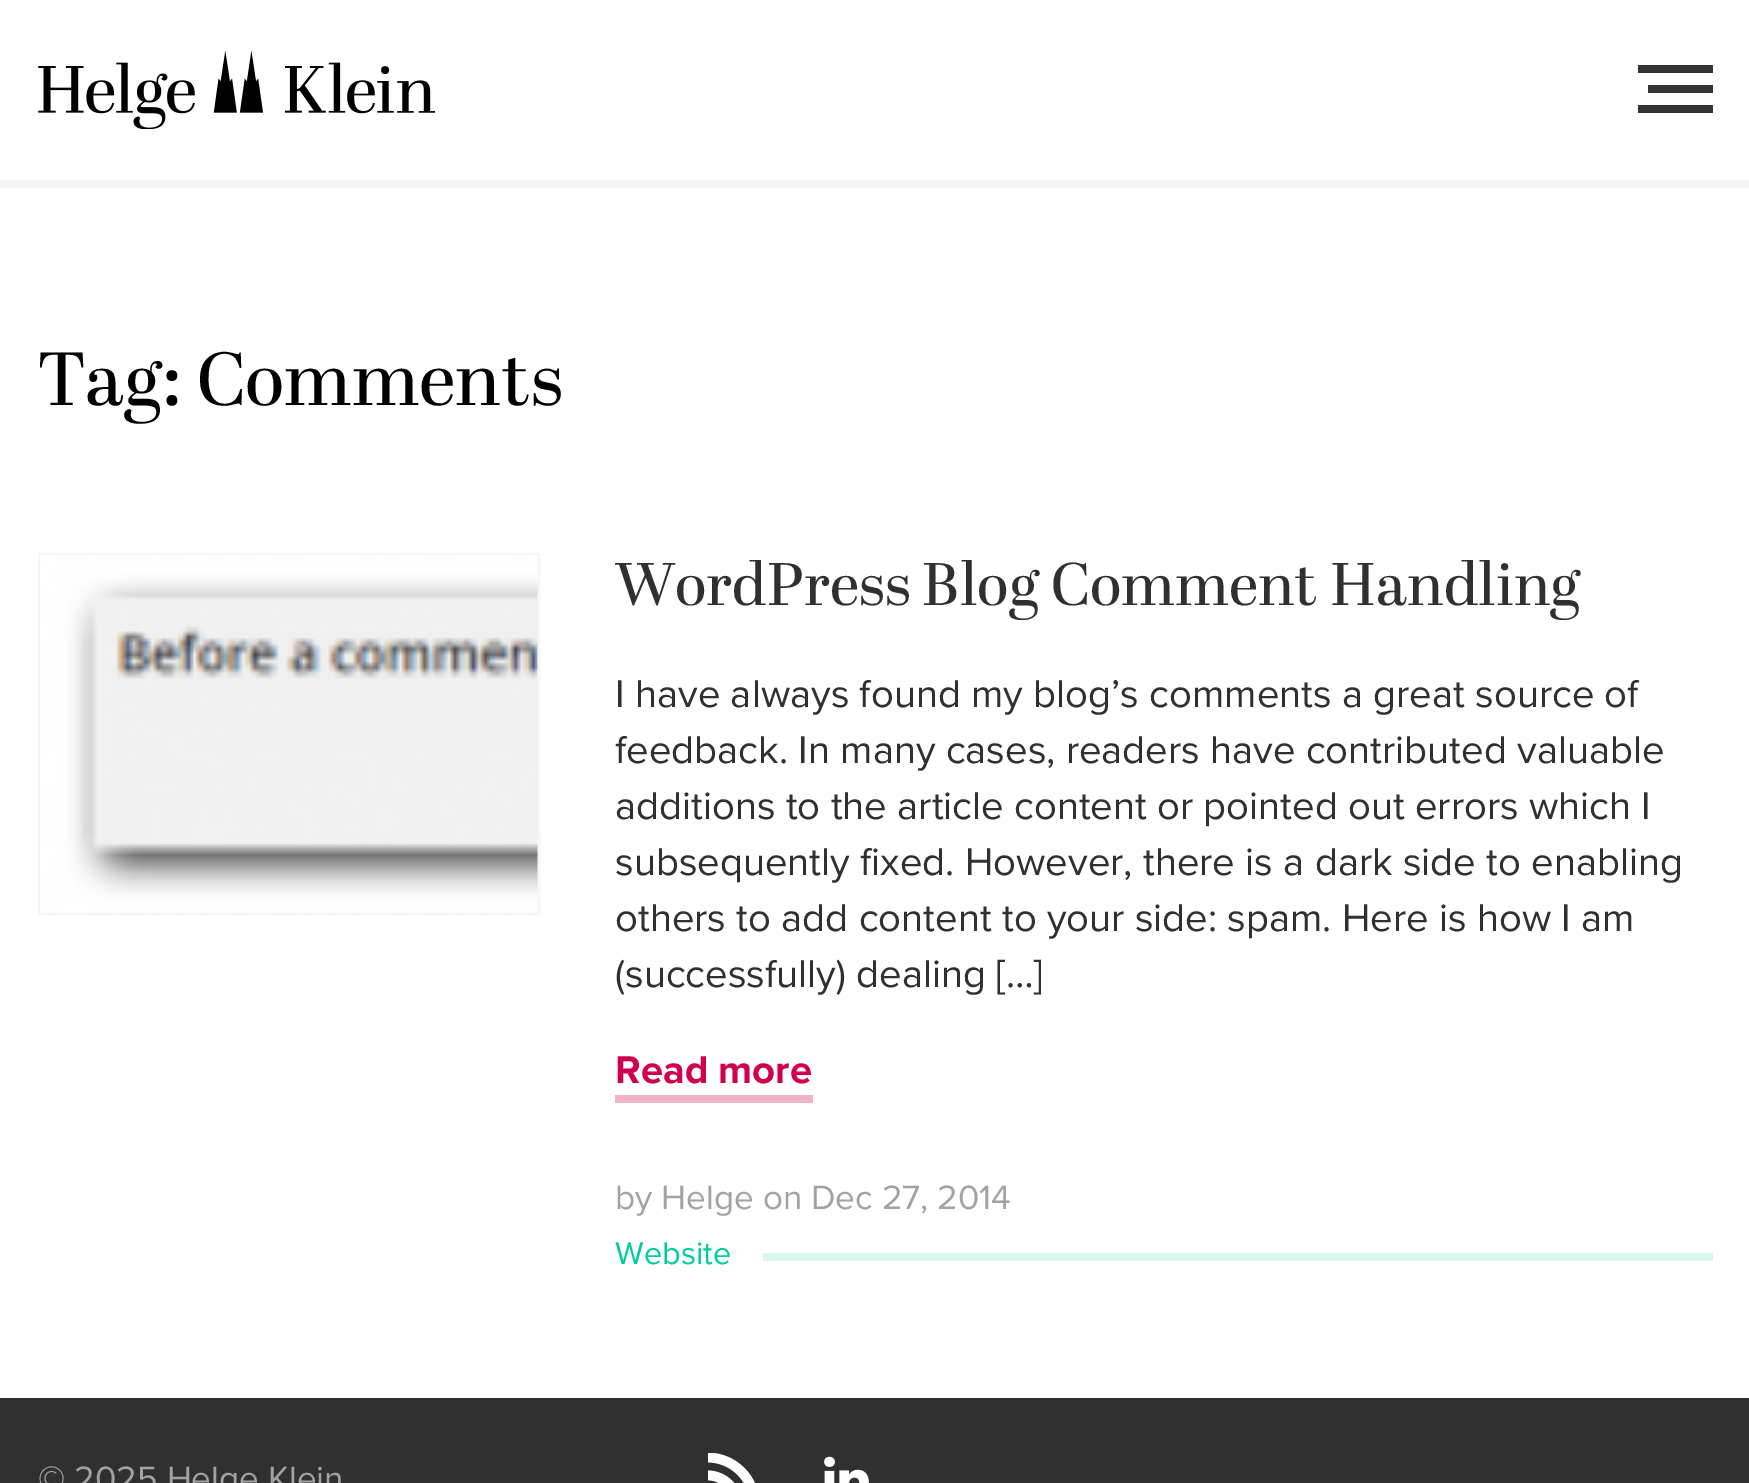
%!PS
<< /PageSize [1749 1483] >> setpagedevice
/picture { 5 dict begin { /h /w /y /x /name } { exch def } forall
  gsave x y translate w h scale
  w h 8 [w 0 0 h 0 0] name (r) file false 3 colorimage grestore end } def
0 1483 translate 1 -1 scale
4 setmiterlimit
1 setgray
0 0 1749 1483 rectfill
0.957 setgray
0 180 1749 8 rectfill
(img1.rgb) 38 50 397 79 picture
0.204 setgray
1648 85 65 8 rectfill
1638 65 75 8 rectfill
1638 105 75 8 rectfill
/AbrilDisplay-Regular [75 0 0 -75 0 0] selectfont
0 setgray
38 405 moveto (Tag: Comments) show
0.965 setgray
3 setlinewidth
39.5 554.5 499 359 rectstroke
(img2.rgb) 40 555 498 358 picture
/AbrilDisplay-Regular [60 0 0 -60 0 0] selectfont
0.188 setgray
615 605 moveto (WordPress Blog Comment Handling) show
/ProximaNova-Regular [40 0 0 -40 0 0] selectfont
615 707 moveto (I have always found my blog’s comments a great source of) show
615 763 moveto (feedback. In many cases, readers have contributed valuable) show
615 819 moveto (additions to the article content or pointed out errors which I) show
615 875 moveto (subsequently fixed. However, there is a dark side to enabling) show
615 931 moveto (others to add content to your side: spam. Here is how I am) show
615 987 moveto (\(successfully\) dealing […]) show
/ProximaNova-Bold [40 0 0 -40 0 0] selectfont
0.82 0 0.302 setrgbcolor
615 1083 moveto (Read more) show
0.945 0.702 0.792 setrgbcolor
615 1095 198 8 rectfill
/ProximaNova-Regular [35 0 0 -35 0 0] selectfont
0.635 setgray
615 1209 moveto (by Helge on Dec 27, 2014) show
/ProximaNova-Regular [32.5 0 0 -32.5 0 0] selectfont
0 0.8 0.62 setrgbcolor
615 1264 moveto (Website) show
0.851 0.969 0.941 setrgbcolor
763 1253 950 8 rectfill
0.188 setgray
0 1398 1749 85 rectfill
/ProximaNova-Regular [35 0 0 -35 0 0] selectfont
0.635 setgray
38 1490 moveto (© 2025 Helge Klein) show
(img3.rgb) 708 1453 47 30 picture
(img4.rgb) 824 1456 45 27 picture
showpage
